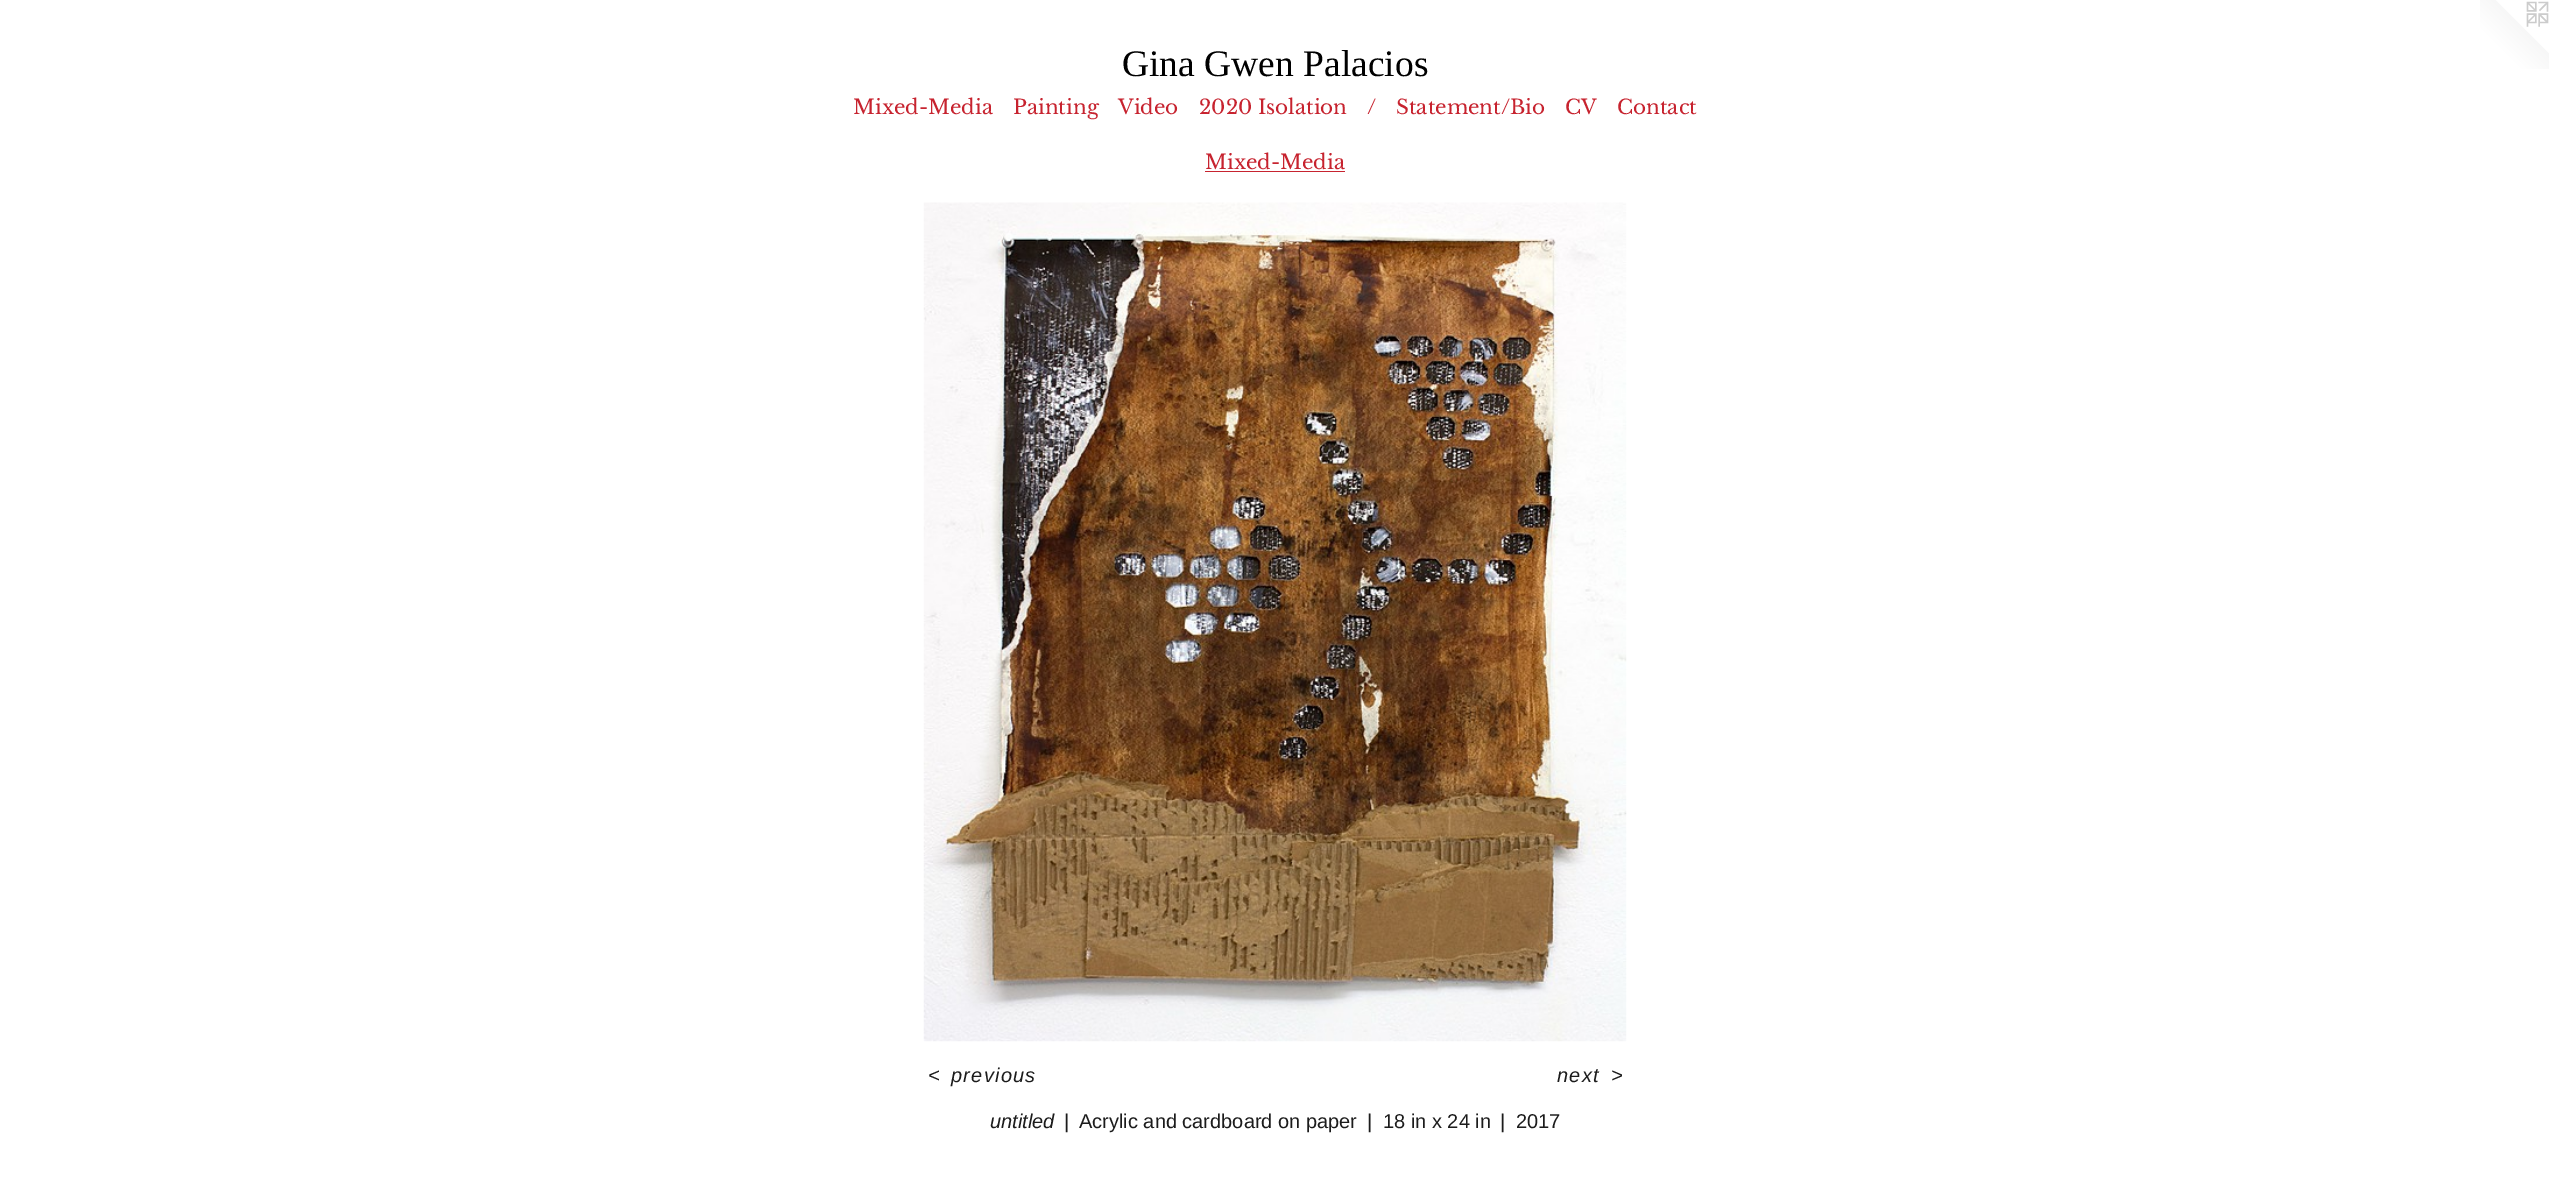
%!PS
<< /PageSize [2549 1198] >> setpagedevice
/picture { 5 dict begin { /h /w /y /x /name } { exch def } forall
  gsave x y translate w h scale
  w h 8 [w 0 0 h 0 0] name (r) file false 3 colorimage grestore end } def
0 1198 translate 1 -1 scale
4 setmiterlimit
1 setgray
0 0 2549 1198 rectfill
/LiberationSerif-Regular [37.5 0 0 -37.5 0 0] selectfont
0 setgray
1122 76 moveto (Gina Gwen Palacios) show
(img1.rgb) 2480 0 69 69 picture
/LibreBaskerville-Regular [20 0 0 -20 0 0] selectfont
0.78 0.137 0.184 setrgbcolor
853 114 moveto (Mixed-Media) show
1013 114 moveto (Painting) show
1118 114 moveto (Video) show
1199 114 moveto (2020 Isolation) show
1367 114 moveto (/) show
1396 114 moveto (Statement/Bio) show
1565 114 moveto (CV) show
1617 114 moveto (Contact) show
1205 169 moveto (Mixed-Media) show
1205 171 140 1 rectfill
(img2.rgb) 923 202 704 840 picture
/LiberationSans-Italic [20 0 0 -20 0 0] selectfont
0.11 setgray
928 1082 moveto 1.25 0 (<) ashow
951 1082 moveto 1.25 0 (previous) ashow
1557 1082 moveto 1.25 0 (next) ashow
1611 1082 moveto 1.25 0 (>) ashow
990 1128 moveto (untitled) show
/LiberationSans-Regular [20 0 0 -20 0 0] selectfont
1064 1128 moveto (|) show
1079 1128 moveto (Acrylic and cardboard on paper) show
1367 1128 moveto (|) show
1383 1128 moveto (18 in x 24 in) show
1500 1128 moveto (|) show
1516 1128 moveto (2017) show
showpage
